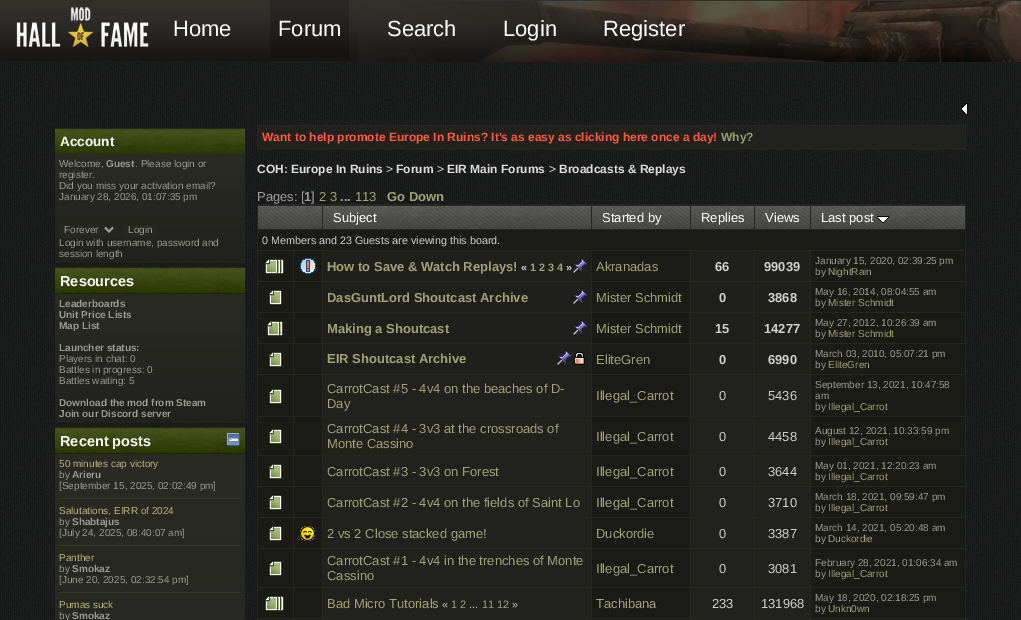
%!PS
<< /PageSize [1021 620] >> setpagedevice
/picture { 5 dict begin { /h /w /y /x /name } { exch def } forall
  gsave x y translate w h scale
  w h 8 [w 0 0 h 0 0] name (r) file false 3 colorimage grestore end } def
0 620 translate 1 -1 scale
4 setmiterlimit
1 setgray
0 0 1021 620 rectfill
(img1.rgb) 0 61 1021 559 picture
(img2.rgb) 0 0 1021 61 picture
(img3.rgb) 358 1 663 61 picture
(img4.rgb) 16 7 133 41 picture
/LiberationSans-Regular [22 0 0 -22 0 0] selectfont
173 36 moveto (Home) show
(img5.rgb) 270 0 79 58 picture
278 36 moveto (Forum) show
387 36 moveto (Search) show
503 36 moveto (Login) show
603 36 moveto (Register) show
(img6.rgb) 961 103 7 12 picture
(img7.rgb) 55 129 190 25 picture
0.153 0.153 0.133 setrgbcolor
55 128 190 1 rectfill
/LiberationSans-Bold [13.5 0 0 -13.5 0 0] selectfont
1 setgray
60 146 moveto (Account) show
gsave newpath 55 154 moveto 245 154 lineto 245 263 lineto 55 263 lineto closepath clip newpath
<< /ShadingType 2 /ColorSpace /DeviceRGB /Coords [150 154 150 263] /Extend [true true] /Function << /FunctionType 2 /Domain [0 1] /C0 [0.169 0.169 0.145] /C1 [0.129 0.129 0.118] /N 1 >> >> shfill grestore
/LiberationSans-Regular [10 0 0 -10 0 0] selectfont
0.6 0.612 0.576 setrgbcolor
59 167 moveto (Welcome,) show
/LiberationSans-Bold [10 0 0 -10 0 0] selectfont
106 167 moveto (Guest) show
/LiberationSans-Regular [10 0 0 -10 0 0] selectfont
135 167 moveto (. Please login or) show
59 178 moveto (register.) show
59 189 moveto (Did you miss your activation email?) show
59 200 moveto (January 28, 2026, 01:07:35 pm) show
0.153 0.153 0.133 setrgbcolor
59 225 59 12 rectfill
0.6 0.612 0.576 setrgbcolor
2 setlinewidth
newpath 105 227.5 moveto 109 231.5 lineto 113 227.5 lineto stroke
64 233 moveto (Forever) show
0.153 0.153 0.133 setrgbcolor
121 225 38 12 rectfill
0.6 0.612 0.576 setrgbcolor
128 233 moveto (Login) show
59 246 moveto (Login with username, password and) show
59 257 moveto (session length) show
(img8.rgb) 55 268 190 26 picture
0.153 0.153 0.133 setrgbcolor
55 267 190 1 rectfill
/LiberationSans-Bold [14.5 0 0 -14.5 0 0] selectfont
1 setgray
60 286 moveto (Resources) show
gsave newpath 55 294 moveto 245 294 lineto 245 423 lineto 55 423 lineto closepath clip newpath
<< /ShadingType 2 /ColorSpace /DeviceRGB /Coords [150 294 150 423] /Extend [true true] /Function << /FunctionType 2 /Domain [0 1] /C0 [0.169 0.169 0.145] /C1 [0.129 0.129 0.118] /N 1 >> >> shfill grestore
/LiberationSans-Bold [10 0 0 -10 0 0] selectfont
0.6 0.612 0.576 setrgbcolor
59 307 moveto (Leaderboards) show
59 318 moveto (Unit Price Lists) show
59 329 moveto (Map List) show
59 351 moveto (Launcher status:) show
/LiberationSans-Regular [10 0 0 -10 0 0] selectfont
59 362 moveto (Players in chat: 0) show
59 373 moveto (Battles in progress: 0) show
59 384 moveto (Battles waiting: 5) show
/LiberationSans-Bold [10 0 0 -10 0 0] selectfont
59 406 moveto (Download the mod from Steam) show
59 417 moveto (Join our Discord server) show
(img8.rgb) 55 428 190 26 picture
0.153 0.153 0.133 setrgbcolor
55 427 190 1 rectfill
/LiberationSans-Bold [14.5 0 0 -14.5 0 0] selectfont
1 setgray
60 446 moveto (Recent posts) show
(img9.rgb) 227 433 13 13 picture
gsave newpath 55 454 moveto 245 454 lineto 245 620 lineto 55 620 lineto closepath clip newpath
<< /ShadingType 2 /ColorSpace /DeviceRGB /Coords [150 454 150 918] /Extend [true true] /Function << /FunctionType 2 /Domain [0 1] /C0 [0.169 0.169 0.145] /C1 [0.129 0.129 0.118] /N 1 >> >> shfill grestore
/LiberationSans-Regular [10 0 0 -10 0 0] selectfont
0.722 0.722 0.463 setrgbcolor
59 467 moveto (50 minutes cap victory) show
0.6 0.612 0.576 setrgbcolor
59 478 moveto (by) show
/LiberationSans-Bold [10 0 0 -10 0 0] selectfont
72 478 moveto (Arieru) show
/LiberationSans-Regular [10 0 0 -10 0 0] selectfont
59 489 moveto ([September 15, 2025, 02:02:49 pm]) show
0.212 0.212 0.184 setrgbcolor
59 498 182 1 rectfill
0.722 0.722 0.463 setrgbcolor
59 514 moveto (Salutations, EIRR of 2024) show
0.6 0.612 0.576 setrgbcolor
59 525 moveto (by) show
/LiberationSans-Bold [10 0 0 -10 0 0] selectfont
72 525 moveto (Shabtajus) show
/LiberationSans-Regular [10 0 0 -10 0 0] selectfont
59 536 moveto ([July 24, 2025, 08:40:07 am]) show
0.212 0.212 0.184 setrgbcolor
59 545 182 1 rectfill
0.722 0.722 0.463 setrgbcolor
59 561 moveto (Panther) show
0.6 0.612 0.576 setrgbcolor
59 572 moveto (by) show
/LiberationSans-Bold [10 0 0 -10 0 0] selectfont
72 572 moveto (Smokaz) show
/LiberationSans-Regular [10 0 0 -10 0 0] selectfont
59 583 moveto ([June 20, 2025, 02:32:54 pm]) show
0.212 0.212 0.184 setrgbcolor
59 592 182 1 rectfill
0.722 0.722 0.463 setrgbcolor
59 608 moveto (Pumas suck) show
0.6 0.612 0.576 setrgbcolor
59 619 moveto (by) show
/LiberationSans-Bold [10 0 0 -10 0 0] selectfont
72 619 moveto (Smokaz) show
0.129 0.129 0.114 setrgbcolor
newpath 257.5 125.5 moveto 965.5 125.5 lineto 965.5 148.5 lineto 257.5 148.5 lineto closepath gsave fill grestore
0.153 0.153 0.133 setrgbcolor
1 setlinewidth
stroke
/LiberationSans-Bold [12 0 0 -12 0 0] selectfont
1 0.345 0.239 setrgbcolor
262 141 moveto (Want to help promote Europe In Ruins? It's as easy as clicking here once a day!) show
0.584 0.631 0.424 setrgbcolor
721 141 moveto (Why?) show
0.867 setgray
257 173 moveto (COH: Europe In Ruins) show
/LiberationSans-Regular [12 0 0 -12 0 0] selectfont
386 173 moveto (>) show
/LiberationSans-Bold [12 0 0 -12 0 0] selectfont
396 173 moveto (Forum) show
/LiberationSans-Regular [12 0 0 -12 0 0] selectfont
437 173 moveto (>) show
/LiberationSans-Bold [12 0 0 -12 0 0] selectfont
447 173 moveto (EIR Main Forums) show
/LiberationSans-Regular [12 0 0 -12 0 0] selectfont
549 173 moveto (>) show
/LiberationSans-Bold [12 0 0 -12 0 0] selectfont
559 173 moveto (Broadcasts & Replays) show
/LiberationSans-Regular [13 0 0 -13 0 0] selectfont
0.612 setgray
257 201 moveto (Pages: [) show
/LiberationSans-Bold [13 0 0 -13 0 0] selectfont
304 201 moveto (1) show
/LiberationSans-Regular [13 0 0 -13 0 0] selectfont
311 201 moveto (]) show
0.616 0.639 0.447 setrgbcolor
319 201 moveto (2 3) show
/LiberationSans-Bold [13 0 0 -13 0 0] selectfont
0.612 setgray
340 201 moveto (...) show
/LiberationSans-Regular [13 0 0 -13 0 0] selectfont
0.616 0.639 0.447 setrgbcolor
355 201 moveto (113) show
/LiberationSans-Bold [13 0 0 -13 0 0] selectfont
387 201 moveto (Go Down) show
0.153 0.153 0.133 setrgbcolor
257 204 709 416 rectfill
(img10.rgb) 258 206 64 23 picture
(img11.rgb) 323 206 268 23 picture
/LiberationSans-Regular [13 0 0 -13 0 0] selectfont
1 setgray
333 222 moveto (Subject) show
(img12.rgb) 592 206 98 23 picture
602 222 moveto (Started by) show
(img13.rgb) 691 206 63 23 picture
701 222 moveto (Replies) show
(img14.rgb) 755 206 55 23 picture
765 222 moveto (Views) show
(img15.rgb) 811 206 154 23 picture
821 222 moveto (Last post) show
(img16.rgb) 877 216 12 7 picture
0.102 0.102 0.086 setrgbcolor
258 230 707 20 rectfill
/LiberationSans-Regular [10.8 0 0 -10.8 0 0] selectfont
0.812 setgray
262 244 moveto (0 Members and 23 Guests are viewing this board.) show
0.102 0.102 0.086 setrgbcolor
258 251 35 30 rectfill
(img17.rgb) 265 259 19 15 picture
294 251 28 30 rectfill
(img18.rgb) 300 258 16 16 picture
0.122 0.122 0.106 setrgbcolor
323 251 268 30 rectfill
/LiberationSans-Bold [13 0 0 -13 0 0] selectfont
0.616 0.639 0.447 setrgbcolor
327 271 moveto (How to Save & Watch Replays!) show
/LiberationSans-Bold [10.8 0 0 -10.8 0 0] selectfont
0.812 setgray
521 271 moveto («) show
0.616 0.639 0.447 setrgbcolor
530 271 moveto (1 2 3 4) show
0.812 setgray
566 271 moveto (») show
(img19.rgb) 573 259 14 14 picture
0.102 0.102 0.086 setrgbcolor
592 251 98 30 rectfill
/LiberationSans-Regular [13 0 0 -13 0 0] selectfont
0.616 0.639 0.447 setrgbcolor
596 271 moveto (Akranadas) show
0.122 0.122 0.106 setrgbcolor
691 251 63 30 rectfill
/LiberationSans-Bold [13 0 0 -13 0 0] selectfont
0.812 setgray
715 271 moveto (66) show
0.122 0.122 0.106 setrgbcolor
755 251 55 30 rectfill
0.812 setgray
764 271 moveto (99039) show
0.102 0.102 0.086 setrgbcolor
811 251 154 30 rectfill
/LiberationSans-Regular [10 0 0 -10 0 0] selectfont
0.6 0.612 0.576 setrgbcolor
815 264 moveto (January 15, 2020, 02:39:25 pm) show
815 275 moveto (by) show
0.616 0.639 0.447 setrgbcolor
828 275 moveto (NightRain) show
0.102 0.102 0.086 setrgbcolor
258 282 35 30 rectfill
(img20.rgb) 269 290 13 15 picture
294 282 28 30 rectfill
0.122 0.122 0.106 setrgbcolor
323 282 268 30 rectfill
/LiberationSans-Bold [13 0 0 -13 0 0] selectfont
0.616 0.639 0.447 setrgbcolor
327 302 moveto (DasGuntLord Shoutcast Archive) show
(img19.rgb) 573 290 14 14 picture
0.102 0.102 0.086 setrgbcolor
592 282 98 30 rectfill
/LiberationSans-Regular [13 0 0 -13 0 0] selectfont
0.616 0.639 0.447 setrgbcolor
596 302 moveto (Mister Schmidt) show
0.122 0.122 0.106 setrgbcolor
691 282 63 30 rectfill
/LiberationSans-Bold [13 0 0 -13 0 0] selectfont
0.812 setgray
719 302 moveto (0) show
0.122 0.122 0.106 setrgbcolor
755 282 55 30 rectfill
0.812 setgray
768 302 moveto (3868) show
0.102 0.102 0.086 setrgbcolor
811 282 154 30 rectfill
/LiberationSans-Regular [10 0 0 -10 0 0] selectfont
0.6 0.612 0.576 setrgbcolor
815 295 moveto (May 16, 2014, 08:04:55 am) show
815 306 moveto (by) show
0.616 0.639 0.447 setrgbcolor
828 306 moveto (Mister Schmidt) show
0.102 0.102 0.086 setrgbcolor
258 313 35 30 rectfill
(img21.rgb) 267 321 16 15 picture
294 313 28 30 rectfill
0.122 0.122 0.106 setrgbcolor
323 313 268 30 rectfill
/LiberationSans-Bold [13 0 0 -13 0 0] selectfont
0.616 0.639 0.447 setrgbcolor
327 333 moveto (Making a Shoutcast) show
(img19.rgb) 573 321 14 14 picture
0.102 0.102 0.086 setrgbcolor
592 313 98 30 rectfill
/LiberationSans-Regular [13 0 0 -13 0 0] selectfont
0.616 0.639 0.447 setrgbcolor
596 333 moveto (Mister Schmidt) show
0.122 0.122 0.106 setrgbcolor
691 313 63 30 rectfill
/LiberationSans-Bold [13 0 0 -13 0 0] selectfont
0.812 setgray
715 333 moveto (15) show
0.122 0.122 0.106 setrgbcolor
755 313 55 30 rectfill
0.812 setgray
764 333 moveto (14277) show
0.102 0.102 0.086 setrgbcolor
811 313 154 30 rectfill
/LiberationSans-Regular [10 0 0 -10 0 0] selectfont
0.6 0.612 0.576 setrgbcolor
815 326 moveto (May 27, 2012, 10:26:39 am) show
815 337 moveto (by) show
0.616 0.639 0.447 setrgbcolor
828 337 moveto (Mister Schmidt) show
0.102 0.102 0.086 setrgbcolor
258 344 35 30 rectfill
(img20.rgb) 269 352 13 15 picture
294 344 28 30 rectfill
0.122 0.122 0.106 setrgbcolor
323 344 268 30 rectfill
/LiberationSans-Bold [13 0 0 -13 0 0] selectfont
0.616 0.639 0.447 setrgbcolor
327 363 moveto (EIR Shoutcast Archive) show
(img19.rgb) 557 351 14 14 picture
(img22.rgb) 574 352 11 13 picture
0.102 0.102 0.086 setrgbcolor
592 344 98 30 rectfill
/LiberationSans-Regular [13 0 0 -13 0 0] selectfont
0.616 0.639 0.447 setrgbcolor
596 364 moveto (EliteGren) show
0.122 0.122 0.106 setrgbcolor
691 344 63 30 rectfill
/LiberationSans-Bold [13 0 0 -13 0 0] selectfont
0.812 setgray
719 364 moveto (0) show
0.122 0.122 0.106 setrgbcolor
755 344 55 30 rectfill
0.812 setgray
768 364 moveto (6990) show
0.102 0.102 0.086 setrgbcolor
811 344 154 30 rectfill
/LiberationSans-Regular [10 0 0 -10 0 0] selectfont
0.6 0.612 0.576 setrgbcolor
815 357 moveto (March 03, 2010, 05:07:21 pm) show
815 368 moveto (by) show
0.616 0.639 0.447 setrgbcolor
828 368 moveto (EliteGren) show
0.102 0.102 0.086 setrgbcolor
258 375 35 41 rectfill
(img20.rgb) 269 389 13 15 picture
294 375 28 41 rectfill
0.129 0.129 0.114 setrgbcolor
323 375 268 41 rectfill
/LiberationSans-Regular [13 0 0 -13 0 0] selectfont
0.616 0.639 0.447 setrgbcolor
327 393 moveto (CarrotCast #5 - 4v4 on the beaches of D-) show
327 408 moveto (Day) show
0.102 0.102 0.086 setrgbcolor
592 375 98 41 rectfill
0.616 0.639 0.447 setrgbcolor
596 400 moveto (Illegal_Carrot) show
0.129 0.129 0.114 setrgbcolor
691 375 63 41 rectfill
0.812 setgray
719 400 moveto (0) show
0.129 0.129 0.114 setrgbcolor
755 375 55 41 rectfill
0.812 setgray
768 400 moveto (5436) show
0.102 0.102 0.086 setrgbcolor
811 375 154 41 rectfill
/LiberationSans-Regular [10 0 0 -10 0 0] selectfont
0.6 0.612 0.576 setrgbcolor
815 388 moveto (September 13, 2021, 10:47:58) show
815 399 moveto (am) show
815 410 moveto (by) show
0.616 0.639 0.447 setrgbcolor
828 410 moveto (Illegal_Carrot) show
0.102 0.102 0.086 setrgbcolor
258 417 35 38 rectfill
(img20.rgb) 269 429 13 15 picture
294 417 28 38 rectfill
0.129 0.129 0.114 setrgbcolor
323 417 268 38 rectfill
/LiberationSans-Regular [13 0 0 -13 0 0] selectfont
0.616 0.639 0.447 setrgbcolor
327 433 moveto (CarrotCast #4 - 3v3 at the crossroads of) show
327 448 moveto (Monte Cassino) show
0.102 0.102 0.086 setrgbcolor
592 417 98 38 rectfill
0.616 0.639 0.447 setrgbcolor
596 441 moveto (Illegal_Carrot) show
0.129 0.129 0.114 setrgbcolor
691 417 63 38 rectfill
0.812 setgray
719 441 moveto (0) show
0.129 0.129 0.114 setrgbcolor
755 417 55 38 rectfill
0.812 setgray
768 441 moveto (4458) show
0.102 0.102 0.086 setrgbcolor
811 417 154 38 rectfill
/LiberationSans-Regular [10 0 0 -10 0 0] selectfont
0.6 0.612 0.576 setrgbcolor
815 434 moveto (August 12, 2021, 10:33:59 pm) show
815 445 moveto (by) show
0.616 0.639 0.447 setrgbcolor
828 445 moveto (Illegal_Carrot) show
0.102 0.102 0.086 setrgbcolor
258 456 35 30 rectfill
(img20.rgb) 269 464 13 15 picture
294 456 28 30 rectfill
0.129 0.129 0.114 setrgbcolor
323 456 268 30 rectfill
/LiberationSans-Regular [13 0 0 -13 0 0] selectfont
0.616 0.639 0.447 setrgbcolor
327 476 moveto (CarrotCast #3 - 3v3 on Forest) show
0.102 0.102 0.086 setrgbcolor
592 456 98 30 rectfill
0.616 0.639 0.447 setrgbcolor
596 476 moveto (Illegal_Carrot) show
0.129 0.129 0.114 setrgbcolor
691 456 63 30 rectfill
0.812 setgray
719 476 moveto (0) show
0.129 0.129 0.114 setrgbcolor
755 456 55 30 rectfill
0.812 setgray
768 476 moveto (3644) show
0.102 0.102 0.086 setrgbcolor
811 456 154 30 rectfill
/LiberationSans-Regular [10 0 0 -10 0 0] selectfont
0.6 0.612 0.576 setrgbcolor
815 469 moveto (May 01, 2021, 12:20:23 am) show
815 480 moveto (by) show
0.616 0.639 0.447 setrgbcolor
828 480 moveto (Illegal_Carrot) show
0.102 0.102 0.086 setrgbcolor
258 487 35 30 rectfill
(img20.rgb) 269 495 13 15 picture
294 487 28 30 rectfill
0.129 0.129 0.114 setrgbcolor
323 487 268 30 rectfill
/LiberationSans-Regular [13 0 0 -13 0 0] selectfont
0.616 0.639 0.447 setrgbcolor
327 507 moveto (CarrotCast #2 - 4v4 on the fields of Saint Lo) show
0.102 0.102 0.086 setrgbcolor
592 487 98 30 rectfill
0.616 0.639 0.447 setrgbcolor
596 507 moveto (Illegal_Carrot) show
0.129 0.129 0.114 setrgbcolor
691 487 63 30 rectfill
0.812 setgray
719 507 moveto (0) show
0.129 0.129 0.114 setrgbcolor
755 487 55 30 rectfill
0.812 setgray
768 507 moveto (3710) show
0.102 0.102 0.086 setrgbcolor
811 487 154 30 rectfill
/LiberationSans-Regular [10 0 0 -10 0 0] selectfont
0.6 0.612 0.576 setrgbcolor
815 500 moveto (March 18, 2021, 09:59:47 pm) show
815 511 moveto (by) show
0.616 0.639 0.447 setrgbcolor
828 511 moveto (Illegal_Carrot) show
0.102 0.102 0.086 setrgbcolor
258 518 35 30 rectfill
(img20.rgb) 269 526 13 15 picture
294 518 28 30 rectfill
(img23.rgb) 300 526 15 15 picture
0.129 0.129 0.114 setrgbcolor
323 518 268 30 rectfill
/LiberationSans-Regular [13 0 0 -13 0 0] selectfont
0.616 0.639 0.447 setrgbcolor
327 538 moveto (2 vs 2 Close stacked game!) show
0.102 0.102 0.086 setrgbcolor
592 518 98 30 rectfill
0.616 0.639 0.447 setrgbcolor
596 538 moveto (Duckordie) show
0.129 0.129 0.114 setrgbcolor
691 518 63 30 rectfill
0.812 setgray
719 538 moveto (0) show
0.129 0.129 0.114 setrgbcolor
755 518 55 30 rectfill
0.812 setgray
768 538 moveto (3387) show
0.102 0.102 0.086 setrgbcolor
811 518 154 30 rectfill
/LiberationSans-Regular [10 0 0 -10 0 0] selectfont
0.6 0.612 0.576 setrgbcolor
815 531 moveto (March 14, 2021, 05:20:48 am) show
815 542 moveto (by) show
0.616 0.639 0.447 setrgbcolor
828 542 moveto (Duckordie) show
0.102 0.102 0.086 setrgbcolor
258 549 35 38 rectfill
(img20.rgb) 269 561 13 15 picture
294 549 28 38 rectfill
0.129 0.129 0.114 setrgbcolor
323 549 268 38 rectfill
/LiberationSans-Regular [13 0 0 -13 0 0] selectfont
0.616 0.639 0.447 setrgbcolor
327 565 moveto (CarrotCast #1 - 4v4 in the trenches of Monte) show
327 580 moveto (Cassino) show
0.102 0.102 0.086 setrgbcolor
592 549 98 38 rectfill
0.616 0.639 0.447 setrgbcolor
596 573 moveto (Illegal_Carrot) show
0.129 0.129 0.114 setrgbcolor
691 549 63 38 rectfill
0.812 setgray
719 573 moveto (0) show
0.129 0.129 0.114 setrgbcolor
755 549 55 38 rectfill
0.812 setgray
768 573 moveto (3081) show
0.102 0.102 0.086 setrgbcolor
811 549 154 38 rectfill
/LiberationSans-Regular [10 0 0 -10 0 0] selectfont
0.6 0.612 0.576 setrgbcolor
815 566 moveto (February 28, 2021, 01:06:34 am) show
815 577 moveto (by) show
0.616 0.639 0.447 setrgbcolor
828 577 moveto (Illegal_Carrot) show
0.102 0.102 0.086 setrgbcolor
258 588 35 30 rectfill
(img17.rgb) 265 596 19 15 picture
294 588 28 30 rectfill
0.129 0.129 0.114 setrgbcolor
323 588 268 30 rectfill
/LiberationSans-Regular [13 0 0 -13 0 0] selectfont
0.616 0.639 0.447 setrgbcolor
327 608 moveto (Bad Micro Tutorials) show
/LiberationSans-Regular [10.8 0 0 -10.8 0 0] selectfont
0.812 setgray
442 608 moveto («) show
0.616 0.639 0.447 setrgbcolor
451 608 moveto (1 2) show
0.812 setgray
469 608 moveto (...) show
0.616 0.639 0.447 setrgbcolor
482 608 moveto (11 12) show
0.812 setgray
512 608 moveto (») show
0.102 0.102 0.086 setrgbcolor
592 588 98 30 rectfill
/LiberationSans-Regular [13 0 0 -13 0 0] selectfont
0.616 0.639 0.447 setrgbcolor
596 608 moveto (Tachibana) show
0.129 0.129 0.114 setrgbcolor
691 588 63 30 rectfill
0.812 setgray
712 608 moveto (233) show
0.129 0.129 0.114 setrgbcolor
755 588 55 30 rectfill
0.812 setgray
761 608 moveto (131968) show
0.102 0.102 0.086 setrgbcolor
811 588 154 30 rectfill
/LiberationSans-Regular [10 0 0 -10 0 0] selectfont
0.6 0.612 0.576 setrgbcolor
815 601 moveto (May 18, 2020, 02:18:25 pm) show
815 612 moveto (by) show
0.616 0.639 0.447 setrgbcolor
828 612 moveto (Unkn0wn) show
0.102 0.102 0.086 setrgbcolor
258 619 35 1 rectfill
294 619 28 1 rectfill
0.129 0.129 0.114 setrgbcolor
323 619 268 1 rectfill
0.102 0.102 0.086 setrgbcolor
592 619 98 1 rectfill
0.129 0.129 0.114 setrgbcolor
691 619 63 1 rectfill
755 619 55 1 rectfill
0.102 0.102 0.086 setrgbcolor
811 619 154 1 rectfill
showpage
